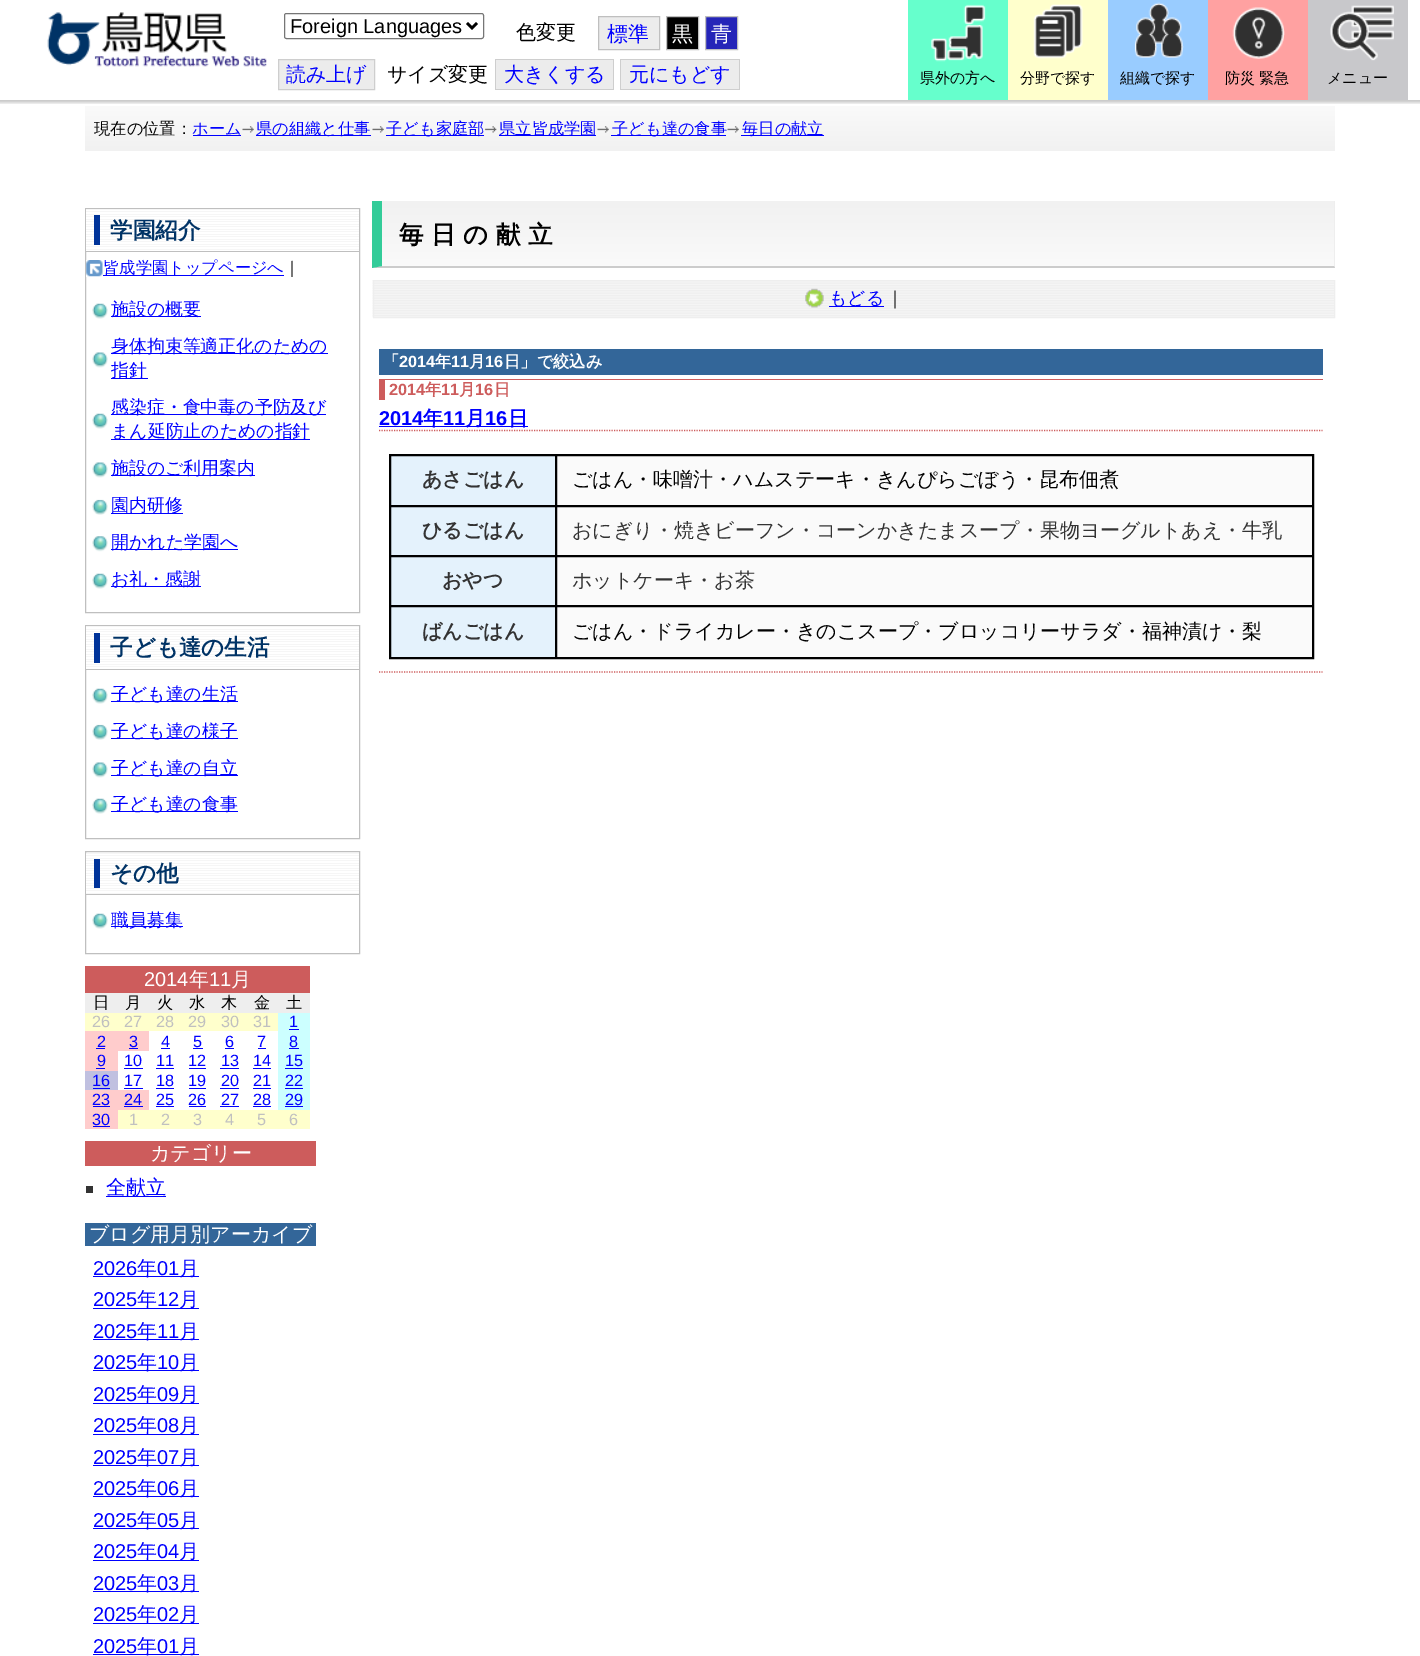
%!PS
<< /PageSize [1420 1656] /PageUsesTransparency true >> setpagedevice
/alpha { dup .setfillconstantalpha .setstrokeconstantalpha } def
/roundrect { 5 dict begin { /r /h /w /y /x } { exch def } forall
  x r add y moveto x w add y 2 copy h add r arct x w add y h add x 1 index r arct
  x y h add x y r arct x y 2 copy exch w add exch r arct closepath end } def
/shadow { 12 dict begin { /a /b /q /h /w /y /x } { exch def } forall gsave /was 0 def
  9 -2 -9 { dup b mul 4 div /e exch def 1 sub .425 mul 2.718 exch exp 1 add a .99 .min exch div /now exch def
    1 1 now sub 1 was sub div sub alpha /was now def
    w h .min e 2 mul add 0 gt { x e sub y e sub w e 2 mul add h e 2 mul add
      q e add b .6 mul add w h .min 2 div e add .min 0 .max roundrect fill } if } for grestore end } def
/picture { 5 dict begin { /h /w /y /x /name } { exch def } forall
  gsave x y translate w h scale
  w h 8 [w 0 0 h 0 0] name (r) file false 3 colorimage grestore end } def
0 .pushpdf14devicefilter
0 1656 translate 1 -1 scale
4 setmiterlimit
1 setgray
0 0 1420 1656 rectfill
gsave newpath 85 106 moveto 1335 106 lineto 1335 151 lineto 85 151 lineto closepath clip newpath
<< /ShadingType 2 /ColorSpace /DeviceRGB /Coords [710 106 710 151] /Extend [true true] /Function << /FunctionType 2 /Domain [0 1] /C0 [0.98 0.98 0.98] /C1 [0.945 0.945 0.945] /N 1 >> >> shfill grestore
gsave
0 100 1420 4 rectclip
0 setgray
-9 1 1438 100 0 3 0.1 shadow
-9 1 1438 100 0 3 0.1 shadow
-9 1 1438 100 0 3 0.1 shadow
-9 1 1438 100 0 3 0.1 shadow
grestore
(img1.rgb) 47 12 220 55 picture
0.463 setgray
284.5 13.5 199 25 2 roundrect stroke
0 setgray
2.5 setlinewidth
newpath 467 23 moveto 472 28 lineto 477 23 lineto stroke
/LiberationSans-Regular [20 0 0 -20 0 0] selectfont
290 33 moveto (Foreign Languages) show
/WenQuanYiZenHei-Medium [20 0 0 -20 0 0] selectfont
516 39 moveto (色変更) show
0.925 setgray
newpath 598.5 16.5 moveto 659.5 16.5 lineto 659.5 49.5 lineto 598.5 49.5 lineto closepath gsave fill grestore
0.749 setgray
1 setlinewidth
stroke
/WenQuanYiZenHei-Medium [21 0 0 -21 0 0] selectfont
0 0 1 setrgbcolor
607 41 moveto (標準) show
0 setgray
newpath 666.5 16.5 moveto 698.5 16.5 lineto 698.5 49.5 lineto 666.5 49.5 lineto closepath gsave fill grestore
0.749 setgray
stroke
1 setgray
672 41 moveto (黒) show
0.145 0.145 0.722 setrgbcolor
newpath 705.5 16.5 moveto 737.5 16.5 lineto 737.5 49.5 lineto 705.5 49.5 lineto closepath gsave fill grestore
0.749 setgray
stroke
1 setgray
711 41 moveto (青) show
0.925 setgray
newpath 278.5 59.5 moveto 374.5 59.5 lineto 374.5 89.5 lineto 278.5 89.5 lineto closepath gsave fill grestore
0.808 setgray
stroke
/WenQuanYiZenHei-Medium [20 0 0 -20 0 0] selectfont
0 0 1 setrgbcolor
286 81 moveto (読み上げ) show
0 setgray
387 81 moveto (サイズ変更) show
0.925 setgray
496 60 117 29 rectfill
0 0 1 setrgbcolor
504 81 moveto (大きくする) show
0.808 setgray
495 59 119 1 rectfill
495 89 29 1 rectfill
495 59 1 31 rectfill
613 59 1 31 rectfill
524 89 90 1 rectfill
0.925 setgray
621 60 118 29 rectfill
0 0 1 setrgbcolor
629 81 moveto (元にもどす) show
0.808 setgray
620 59 120 1 rectfill
620 89 29 1 rectfill
620 59 1 31 rectfill
739 59 1 31 rectfill
649 89 91 1 rectfill
0.4 1 0.8 setrgbcolor
908 0 100 100 rectfill
(img2.rgb) 931 4 55 58 picture
/WenQuanYiZenHei-Medium [15 0 0 -15 0 0] selectfont
0 setgray
920 83 moveto (県外の方へ) show
1 1 0.8 setrgbcolor
1008 0 100 100 rectfill
(img3.rgb) 1033 4 50 55 picture
0 setgray
1020 83 moveto (分野で探す) show
0.6 0.8 1 setrgbcolor
1108 0 100 100 rectfill
(img4.rgb) 1134 2 50 56 picture
0 setgray
1120 83 moveto (組織で探す) show
1 0.631 0.631 setrgbcolor
1208 0 100 100 rectfill
(img5.rgb) 1232 7 53 52 picture
0 setgray
1225 83 moveto (防災 緊急) show
0.784 0.784 0.796 setrgbcolor
1308 0 100 100 rectfill
(img6.rgb) 1330 5 64 56 picture
0 setgray
1327 83 moveto (メニュー) show
/WenQuanYiZenHei-Medium [16.25 0 0 -16.25 0 0] selectfont
94 134 moveto (現在の位置：) show
0 0 1 setrgbcolor
193 135 48 1 rectfill
192 134 moveto (ホーム) show
(img7.rgb) 242 126 12 7 picture
256 135 115 1 rectfill
256 134 moveto (県の組織と仕事) show
(img7.rgb) 372 126 12 7 picture
386 135 98 1 rectfill
386 134 moveto (子ども家庭部) show
(img8.rgb) 484 126 13 7 picture
499 135 97 1 rectfill
499 134 moveto (県立皆成学園) show
(img7.rgb) 597 126 12 7 picture
611 135 115 1 rectfill
612 134 moveto (子ども達の食事) show
(img7.rgb) 727 126 12 7 picture
741 135 83 1 rectfill
742 134 moveto (毎日の献立) show
0.749 setgray
85.5 208.5 274 404 rectstroke
(img9.rgb) 86 209 273 42 picture
86 251 273 1 rectfill
0 0.2 0.6 setrgbcolor
94 215 6 30 rectfill
/WenQuanYiZenHei-Bold [22.5 0 0 -22.5 0 0] selectfont
0 0.2 0.4 setrgbcolor
110 238 moveto (学園紹介) show
(img10.rgb) 86 260 17 17 picture
0 0 1 setrgbcolor
103 275 181 1 rectfill
/WenQuanYiZenHei-Medium [16.25 0 0 -16.25 0 0] selectfont
103 273 moveto (皆成学園トップページへ) show
0 setgray
284 273 moveto (｜) show
(img11.rgb) 92 303 16 16 picture
0 0 1 setrgbcolor
111 316 90 1 rectfill
/WenQuanYiZenHei-Medium [17.9 0 0 -17.9 0 0] selectfont
111 315 moveto (施設の概要) show
(img12.rgb) 92 352 16 16 picture
111 353 217 1 rectfill
111 352 moveto (身体拘束等適正化のための) show
111 378 37 1 rectfill
111 376 moveto (指針) show
(img11.rgb) 92 413 16 16 picture
111 414 215 1 rectfill
111 413 moveto (感染症・食中毒の予防及び) show
111 439 199 1 rectfill
111 437 moveto (まん延防止のための指針) show
(img12.rgb) 92 462 16 16 picture
111 475 144 1 rectfill
111 474 moveto (施設のご利用案内) show
(img13.rgb) 92 499 16 16 picture
111 513 72 1 rectfill
111 511 moveto (園内研修) show
(img14.rgb) 92 536 16 16 picture
111 549 127 1 rectfill
111 548 moveto (開かれた学園へ) show
(img11.rgb) 92 573 16 16 picture
111 586 90 1 rectfill
111 585 moveto (お礼・感謝) show
0.749 setgray
85.5 625.5 274 213 rectstroke
(img15.rgb) 86 626 273 43 picture
86 669 273 1 rectfill
0 0.2 0.6 setrgbcolor
94 633 6 30 rectfill
/WenQuanYiZenHei-Bold [22.5 0 0 -22.5 0 0] selectfont
0 0.2 0.4 setrgbcolor
110 655 moveto (子ども達の生活) show
(img11.rgb) 92 688 16 16 picture
0 0 1 setrgbcolor
111 701 127 1 rectfill
/WenQuanYiZenHei-Medium [17.9 0 0 -17.9 0 0] selectfont
111 700 moveto (子ども達の生活) show
(img13.rgb) 92 724 16 16 picture
111 738 127 1 rectfill
111 737 moveto (子ども達の様子) show
(img12.rgb) 92 762 16 16 picture
111 775 127 1 rectfill
111 774 moveto (子ども達の自立) show
(img11.rgb) 92 798 16 16 picture
111 811 127 1 rectfill
111 810 moveto (子ども達の食事) show
0.749 setgray
85.5 851.5 274 102 rectstroke
(img16.rgb) 86 853 273 41 picture
86 894 273 1 rectfill
0 0.2 0.6 setrgbcolor
94 859 6 29 rectfill
/WenQuanYiZenHei-Bold [22.5 0 0 -22.5 0 0] selectfont
0 0.2 0.4 setrgbcolor
110 881 moveto (その他) show
(img11.rgb) 92 913 16 16 picture
0 0 1 setrgbcolor
111 926 72 1 rectfill
/WenQuanYiZenHei-Medium [17.9 0 0 -17.9 0 0] selectfont
111 926 moveto (職員募集) show
0.804 0.361 0.361 setrgbcolor
85 966 225 27 rectfill
/LiberationSans-Regular [20 0 0 -20 0 0] selectfont
1 setgray
144 986 moveto (2014) show
/WenQuanYiZenHei-Medium [20 0 0 -20 0 0] selectfont
189 986 moveto (年) show
/LiberationSans-Regular [20 0 0 -20 0 0] selectfont
209 986 moveto (11) show
/WenQuanYiZenHei-Medium [20 0 0 -20 0 0] selectfont
231 986 moveto (月) show
0.933 setgray
85 993 225 20 rectfill
/WenQuanYiZenHei-Medium [16.25 0 0 -16.25 0 0] selectfont
0 setgray
93 1008 moveto (日) show
125 1008 moveto (月) show
157 1008 moveto (火) show
189 1008 moveto (水) show
221 1008 moveto (木) show
254 1008 moveto (金) show
286 1008 moveto (土) show
1 1 0.8 setrgbcolor
85 1013 193 18 rectfill
/LiberationSans-Regular [16.25 0 0 -16.25 0 0] selectfont
0.753 setgray
92 1027 moveto (26) show
124 1027 moveto (27) show
156 1027 moveto (28) show
188 1027 moveto (29) show
221 1027 moveto (30) show
253 1027 moveto (31) show
0.8 1 1 setrgbcolor
278 1013 32 97 rectfill
0 0 1 setrgbcolor
289 1027 moveto (1) show
289 1029 10 1 rectfill
1 0.8 0.8 setrgbcolor
85 1031 64 20 rectfill
0 0 1 setrgbcolor
97 1047 moveto (2) show
96 1048 9 1 rectfill
129 1047 moveto (3) show
129 1048 9 1 rectfill
161 1047 moveto (4) show
161 1048 9 1 rectfill
193 1047 moveto (5) show
193 1048 10 1 rectfill
225 1047 moveto (6) show
225 1048 9 1 rectfill
257 1047 moveto (7) show
258 1048 8 1 rectfill
289 1047 moveto (8) show
289 1048 10 1 rectfill
1 0.8 0.8 setrgbcolor
85 1051 33 20 rectfill
0 0 1 setrgbcolor
97 1066 moveto (9) show
96 1068 9 1 rectfill
124 1066 moveto (10) show
124 1068 19 1 rectfill
156 1066 moveto (11) show
156 1068 18 1 rectfill
188 1066 moveto (12) show
189 1068 17 1 rectfill
221 1066 moveto (13) show
220 1068 19 1 rectfill
253 1066 moveto (14) show
253 1068 18 1 rectfill
285 1066 moveto (15) show
285 1068 18 1 rectfill
0.753 0.753 0.878 setrgbcolor
85 1071 33 19 rectfill
0 0 1 setrgbcolor
92 1086 moveto (16) show
93 1088 17 1 rectfill
124 1086 moveto (17) show
124 1088 19 1 rectfill
156 1086 moveto (18) show
156 1088 18 1 rectfill
188 1086 moveto (19) show
189 1088 17 1 rectfill
221 1086 moveto (20) show
220 1088 19 1 rectfill
253 1086 moveto (21) show
253 1088 18 1 rectfill
285 1086 moveto (22) show
285 1088 18 1 rectfill
1 0.8 0.8 setrgbcolor
85 1090 64 20 rectfill
0 0 1 setrgbcolor
92 1105 moveto (23) show
93 1106 17 1 rectfill
124 1105 moveto (24) show
124 1106 19 1 rectfill
156 1105 moveto (25) show
156 1106 18 1 rectfill
188 1105 moveto (26) show
189 1106 17 1 rectfill
221 1105 moveto (27) show
220 1106 19 1 rectfill
253 1105 moveto (28) show
253 1106 18 1 rectfill
285 1105 moveto (29) show
285 1106 18 1 rectfill
1 0.8 0.8 setrgbcolor
85 1110 33 19 rectfill
0 0 1 setrgbcolor
92 1125 moveto (30) show
93 1126 17 1 rectfill
1 1 0.8 setrgbcolor
118 1110 192 19 rectfill
0.753 setgray
129 1125 moveto (1) show
161 1125 moveto (2) show
193 1125 moveto (3) show
225 1125 moveto (4) show
257 1125 moveto (5) show
289 1125 moveto (6) show
0.804 0.361 0.361 setrgbcolor
85 1141 231 25 rectfill
/WenQuanYiZenHei-Medium [20 0 0 -20 0 0] selectfont
1 setgray
150 1160 moveto (カテゴリー) show
0.2 setgray
86 1186 7 7 rectfill
0 0 1 setrgbcolor
106 1196 60 1 rectfill
106 1194 moveto (全献立) show
0.2 0.4 0.6 setrgbcolor
85 1223 231 23 rectfill
1 setgray
89 1241 moveto (ブログ用月別アーカイブ) show
/LiberationSans-Regular [20 0 0 -20 0 0] selectfont
0 0 1 setrgbcolor
93 1275 moveto (2026) show
93 1276 106 1 rectfill
/WenQuanYiZenHei-Medium [20 0 0 -20 0 0] selectfont
137 1275 moveto (年) show
/LiberationSans-Regular [20 0 0 -20 0 0] selectfont
157 1275 moveto (01) show
/WenQuanYiZenHei-Medium [20 0 0 -20 0 0] selectfont
179 1275 moveto (月) show
/LiberationSans-Regular [20 0 0 -20 0 0] selectfont
93 1306 moveto (2025) show
93 1308 106 1 rectfill
/WenQuanYiZenHei-Medium [20 0 0 -20 0 0] selectfont
137 1306 moveto (年) show
/LiberationSans-Regular [20 0 0 -20 0 0] selectfont
157 1306 moveto (12) show
/WenQuanYiZenHei-Medium [20 0 0 -20 0 0] selectfont
179 1306 moveto (月) show
/LiberationSans-Regular [20 0 0 -20 0 0] selectfont
93 1338 moveto (2025) show
93 1339 106 1 rectfill
/WenQuanYiZenHei-Medium [20 0 0 -20 0 0] selectfont
137 1338 moveto (年) show
/LiberationSans-Regular [20 0 0 -20 0 0] selectfont
157 1338 moveto (11) show
/WenQuanYiZenHei-Medium [20 0 0 -20 0 0] selectfont
179 1338 moveto (月) show
/LiberationSans-Regular [20 0 0 -20 0 0] selectfont
93 1369 moveto (2025) show
93 1370 106 1 rectfill
/WenQuanYiZenHei-Medium [20 0 0 -20 0 0] selectfont
137 1369 moveto (年) show
/LiberationSans-Regular [20 0 0 -20 0 0] selectfont
157 1369 moveto (10) show
/WenQuanYiZenHei-Medium [20 0 0 -20 0 0] selectfont
179 1369 moveto (月) show
/LiberationSans-Regular [20 0 0 -20 0 0] selectfont
93 1401 moveto (2025) show
93 1403 106 1 rectfill
/WenQuanYiZenHei-Medium [20 0 0 -20 0 0] selectfont
137 1401 moveto (年) show
/LiberationSans-Regular [20 0 0 -20 0 0] selectfont
157 1401 moveto (09) show
/WenQuanYiZenHei-Medium [20 0 0 -20 0 0] selectfont
179 1401 moveto (月) show
/LiberationSans-Regular [20 0 0 -20 0 0] selectfont
93 1432 moveto (2025) show
93 1434 106 1 rectfill
/WenQuanYiZenHei-Medium [20 0 0 -20 0 0] selectfont
137 1432 moveto (年) show
/LiberationSans-Regular [20 0 0 -20 0 0] selectfont
157 1432 moveto (08) show
/WenQuanYiZenHei-Medium [20 0 0 -20 0 0] selectfont
179 1432 moveto (月) show
/LiberationSans-Regular [20 0 0 -20 0 0] selectfont
93 1464 moveto (2025) show
93 1465 106 1 rectfill
/WenQuanYiZenHei-Medium [20 0 0 -20 0 0] selectfont
137 1464 moveto (年) show
/LiberationSans-Regular [20 0 0 -20 0 0] selectfont
157 1464 moveto (07) show
/WenQuanYiZenHei-Medium [20 0 0 -20 0 0] selectfont
179 1464 moveto (月) show
/LiberationSans-Regular [20 0 0 -20 0 0] selectfont
93 1495 moveto (2025) show
93 1496 106 1 rectfill
/WenQuanYiZenHei-Medium [20 0 0 -20 0 0] selectfont
137 1495 moveto (年) show
/LiberationSans-Regular [20 0 0 -20 0 0] selectfont
157 1495 moveto (06) show
/WenQuanYiZenHei-Medium [20 0 0 -20 0 0] selectfont
179 1495 moveto (月) show
/LiberationSans-Regular [20 0 0 -20 0 0] selectfont
93 1527 moveto (2025) show
93 1528 106 1 rectfill
/WenQuanYiZenHei-Medium [20 0 0 -20 0 0] selectfont
137 1527 moveto (年) show
/LiberationSans-Regular [20 0 0 -20 0 0] selectfont
157 1527 moveto (05) show
/WenQuanYiZenHei-Medium [20 0 0 -20 0 0] selectfont
179 1527 moveto (月) show
/LiberationSans-Regular [20 0 0 -20 0 0] selectfont
93 1558 moveto (2025) show
93 1560 106 1 rectfill
/WenQuanYiZenHei-Medium [20 0 0 -20 0 0] selectfont
137 1558 moveto (年) show
/LiberationSans-Regular [20 0 0 -20 0 0] selectfont
157 1558 moveto (04) show
/WenQuanYiZenHei-Medium [20 0 0 -20 0 0] selectfont
179 1558 moveto (月) show
/LiberationSans-Regular [20 0 0 -20 0 0] selectfont
93 1590 moveto (2025) show
93 1591 106 1 rectfill
/WenQuanYiZenHei-Medium [20 0 0 -20 0 0] selectfont
137 1590 moveto (年) show
/LiberationSans-Regular [20 0 0 -20 0 0] selectfont
157 1590 moveto (03) show
/WenQuanYiZenHei-Medium [20 0 0 -20 0 0] selectfont
179 1590 moveto (月) show
/LiberationSans-Regular [20 0 0 -20 0 0] selectfont
93 1621 moveto (2025) show
93 1623 106 1 rectfill
/WenQuanYiZenHei-Medium [20 0 0 -20 0 0] selectfont
137 1621 moveto (年) show
/LiberationSans-Regular [20 0 0 -20 0 0] selectfont
157 1621 moveto (02) show
/WenQuanYiZenHei-Medium [20 0 0 -20 0 0] selectfont
179 1621 moveto (月) show
/LiberationSans-Regular [20 0 0 -20 0 0] selectfont
93 1653 moveto (2025) show
93 1654 106 1 rectfill
/WenQuanYiZenHei-Medium [20 0 0 -20 0 0] selectfont
137 1653 moveto (年) show
/LiberationSans-Regular [20 0 0 -20 0 0] selectfont
157 1653 moveto (01) show
/WenQuanYiZenHei-Medium [20 0 0 -20 0 0] selectfont
179 1653 moveto (月) show
gsave newpath 382 201 moveto 1334 201 lineto 1334 266 lineto 382 266 lineto closepath clip newpath
<< /ShadingType 2 /ColorSpace /DeviceRGB /Coords [858 201 858 266] /Extend [true true] /Function << /FunctionType 2 /Domain [0 1] /C0 [0.945 0.945 0.945] /C1 [0.98 0.98 0.98] /N 1 >> >> shfill grestore
0.933 setgray
1334 201 1 67 rectfill
0.8 setgray
newpath 1335 268 moveto 372 268 lineto 382 266 lineto 1334 266 lineto closepath fill
0.2 0.8 0.6 setrgbcolor
newpath 372 268 moveto 372 201 lineto 382 201 lineto 382 266 lineto closepath fill
/WenQuanYiZenHei-Bold [24.5 0 0 -24.5 0 0] selectfont
0 setgray
399 243 moveto 7.5 0 (毎日の献立) ashow
(img17.rgb) 372 280 962 38 picture
0.933 setgray
373.5 280.5 961 37 rectstroke
(img18.rgb) 805 288 19 20 picture
0 0 1 setrgbcolor
829 306 55 1 rectfill
/WenQuanYiZenHei-Medium [17.9 0 0 -17.9 0 0] selectfont
829 304 moveto (もどる) show
0 setgray
886 304 moveto (｜) show
0.2 0.4 0.6 setrgbcolor
379 349 944 26 rectfill
/WenQuanYiZenHei-Bold [16.25 0 0 -16.25 0 0] selectfont
1 setgray
383 367 moveto (「) show
/LiberationSans-Bold [16.25 0 0 -16.25 0 0] selectfont
399 367 moveto (2014) show
/WenQuanYiZenHei-Bold [16.25 0 0 -16.25 0 0] selectfont
435 367 moveto (年) show
/LiberationSans-Bold [16.25 0 0 -16.25 0 0] selectfont
451 367 moveto (11) show
/WenQuanYiZenHei-Bold [16.25 0 0 -16.25 0 0] selectfont
469 367 moveto (月) show
/LiberationSans-Bold [16.25 0 0 -16.25 0 0] selectfont
485 367 moveto (16) show
/WenQuanYiZenHei-Bold [16.25 0 0 -16.25 0 0] selectfont
504 367 moveto (日」で絞込み) show
0.804 0.361 0.361 setrgbcolor
379 379 944 1 rectfill
379 379 6 21 rectfill
/LiberationSans-Bold [16.25 0 0 -16.25 0 0] selectfont
389 395 moveto (2014) show
/WenQuanYiZenHei-Bold [16.25 0 0 -16.25 0 0] selectfont
425 395 moveto (年) show
/LiberationSans-Bold [16.25 0 0 -16.25 0 0] selectfont
441 395 moveto (11) show
/WenQuanYiZenHei-Bold [16.25 0 0 -16.25 0 0] selectfont
459 395 moveto (月) show
/LiberationSans-Bold [16.25 0 0 -16.25 0 0] selectfont
475 395 moveto (16) show
/WenQuanYiZenHei-Bold [16.25 0 0 -16.25 0 0] selectfont
494 395 moveto (日) show
1.2 setlinewidth
[1.25 1.25] 0 setdash
newpath 379 430.5 moveto 1322.5 430.5 lineto stroke
/LiberationSans-Bold [20 0 0 -20 0 0] selectfont
0 0 1 setrgbcolor
379 425 moveto (2014) show
379 426 149 1 rectfill
/WenQuanYiZenHei-Bold [20 0 0 -20 0 0] selectfont
423 425 moveto (年) show
/LiberationSans-Bold [20 0 0 -20 0 0] selectfont
443 425 moveto (11) show
/WenQuanYiZenHei-Bold [20 0 0 -20 0 0] selectfont
465 425 moveto (月) show
/LiberationSans-Bold [20 0 0 -20 0 0] selectfont
485 425 moveto (16) show
/WenQuanYiZenHei-Bold [20 0 0 -20 0 0] selectfont
508 425 moveto (日) show
0 setgray
1 setlinewidth
[] 0 setdash
389.5 454.5 924 204 rectstroke
0.894 0.949 0.988 setrgbcolor
newpath 390.5 455.5 moveto 555.5 455.5 lineto 555.5 505.5 lineto 390.5 505.5 lineto closepath gsave fill grestore
0 setgray
stroke
0.2 setgray
422 486 moveto (あさごはん) show
0.98 setgray
newpath 556.5 455.5 moveto 1312.5 455.5 lineto 1312.5 505.5 lineto 556.5 505.5 lineto closepath gsave fill grestore
0 setgray
stroke
/WenQuanYiZenHei-Medium [20 0 0 -20 0 0] selectfont
572 486 moveto (ごはん・味噌汁・ハムステーキ・きんぴらごぼう・昆布佃煮) show
0.894 0.949 0.988 setrgbcolor
newpath 390.5 506.5 moveto 555.5 506.5 lineto 555.5 555.5 lineto 390.5 555.5 lineto closepath gsave fill grestore
0 setgray
stroke
/WenQuanYiZenHei-Bold [20 0 0 -20 0 0] selectfont
0.2 setgray
422 537 moveto (ひるごはん) show
0.98 setgray
newpath 556.5 506.5 moveto 1312.5 506.5 lineto 1312.5 555.5 lineto 556.5 555.5 lineto closepath gsave fill grestore
0 setgray
stroke
/WenQuanYiZenHei-Medium [20 0 0 -20 0 0] selectfont
0.2 setgray
572 537 moveto (おにぎり・焼きビーフン・コーンかきたまスープ・果物ヨーグルトあえ・牛乳) show
0.894 0.949 0.988 setrgbcolor
newpath 390.5 556.5 moveto 555.5 556.5 lineto 555.5 605.5 lineto 390.5 605.5 lineto closepath gsave fill grestore
0 setgray
stroke
/WenQuanYiZenHei-Bold [20 0 0 -20 0 0] selectfont
0.2 setgray
442 587 moveto (おやつ) show
0.98 setgray
newpath 556.5 556.5 moveto 1312.5 556.5 lineto 1312.5 605.5 lineto 556.5 605.5 lineto closepath gsave fill grestore
0 setgray
stroke
/WenQuanYiZenHei-Medium [20 0 0 -20 0 0] selectfont
0.2 setgray
572 587 moveto (ホットケーキ・お茶) show
0.894 0.949 0.988 setrgbcolor
newpath 390.5 606.5 moveto 555.5 606.5 lineto 555.5 657.5 lineto 390.5 657.5 lineto closepath gsave fill grestore
0 setgray
stroke
/WenQuanYiZenHei-Bold [20 0 0 -20 0 0] selectfont
0.2 setgray
422 638 moveto (ばんごはん) show
0.98 setgray
newpath 556.5 606.5 moveto 1312.5 606.5 lineto 1312.5 657.5 lineto 556.5 657.5 lineto closepath gsave fill grestore
0 setgray
stroke
/WenQuanYiZenHei-Medium [20 0 0 -20 0 0] selectfont
572 638 moveto (ごはん・ドライカレー・きのこスープ・ブロッコリーサラダ・福神漬け・梨) show
0.804 0.361 0.361 setrgbcolor
1.2 setlinewidth
[1.25 1.25] 0 setdash
newpath 379 672 moveto 1322.5 672 lineto stroke
.poppdf14devicefilter showpage
